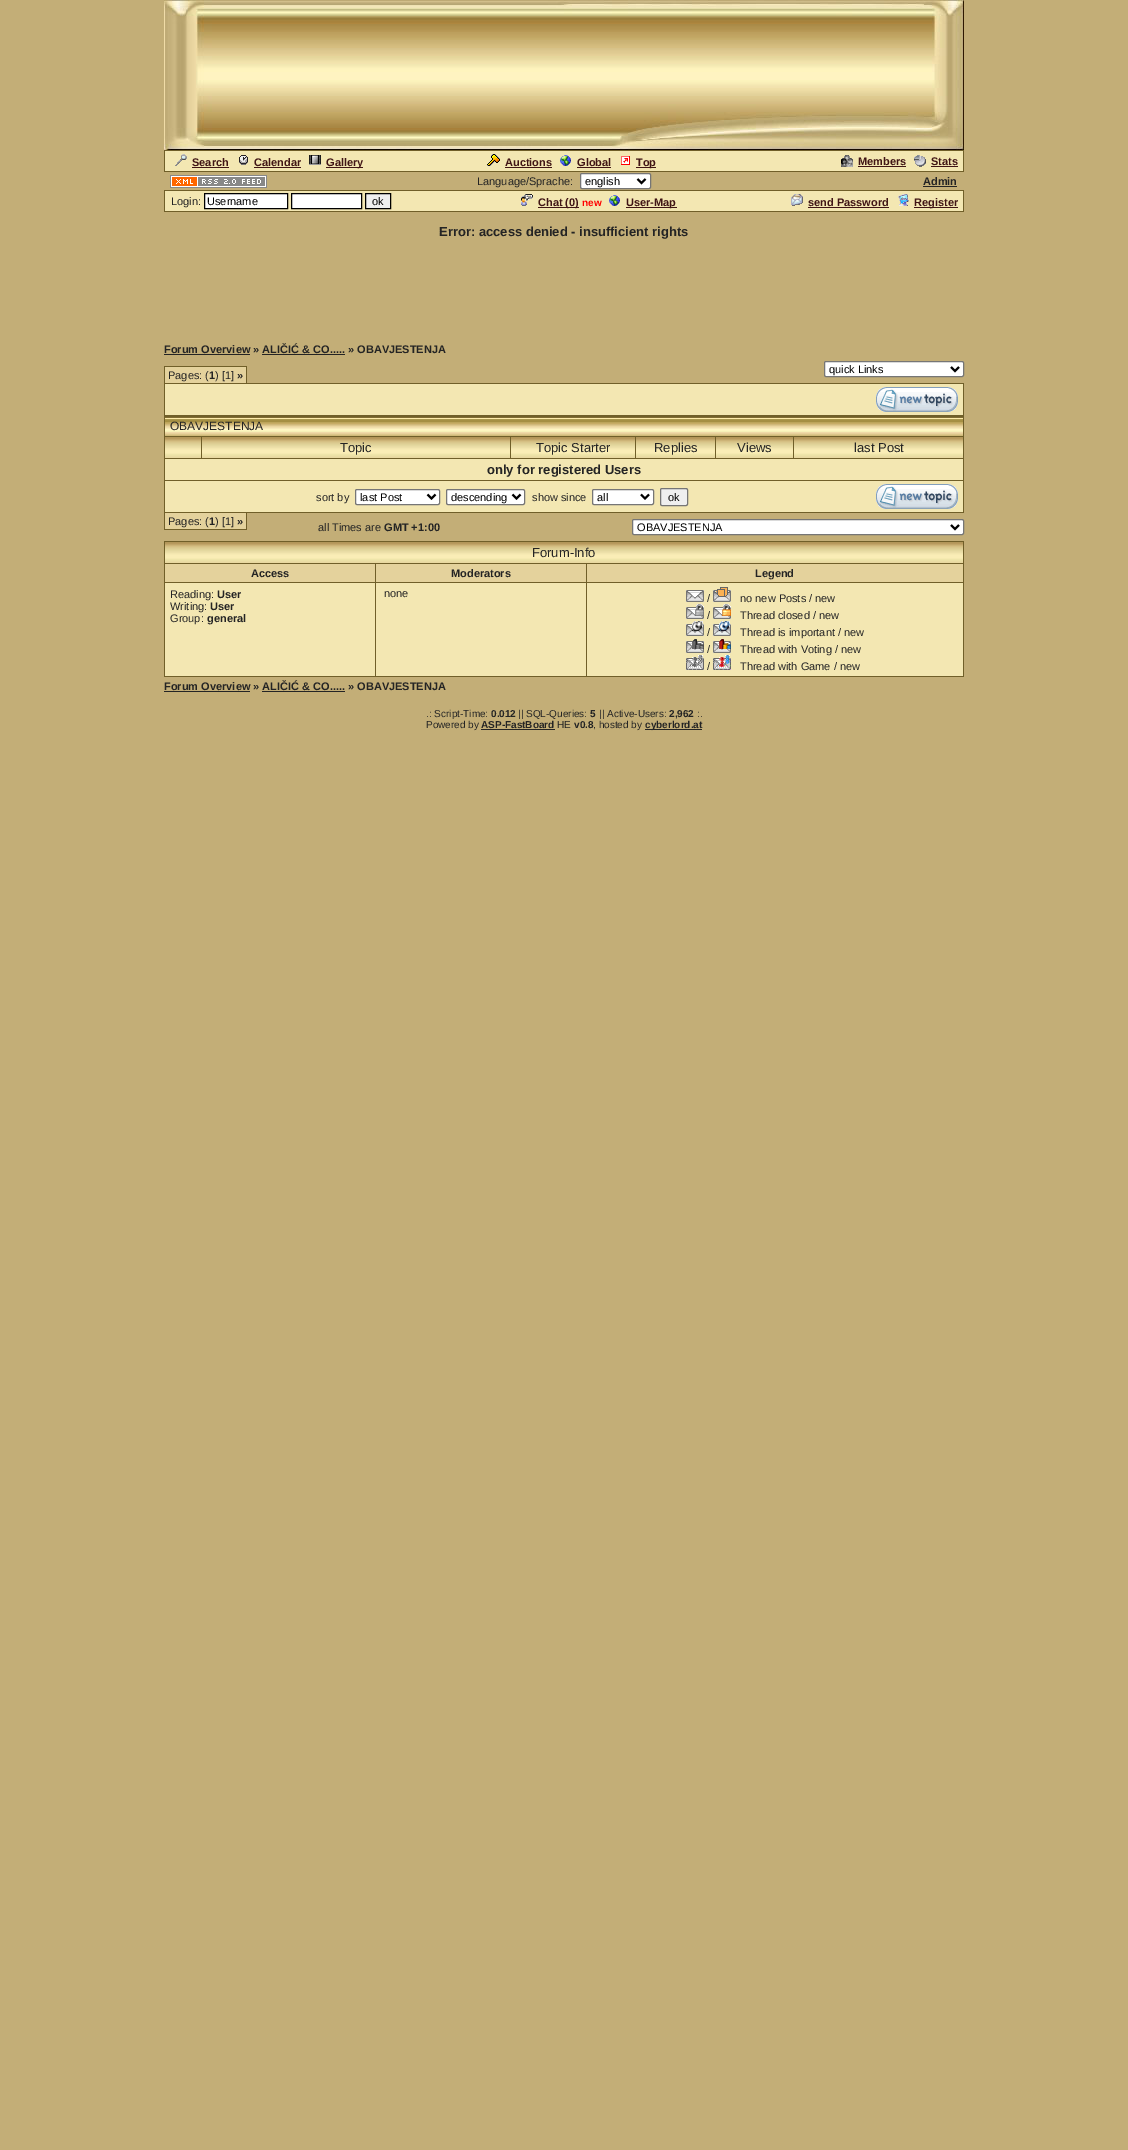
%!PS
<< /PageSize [1128 2150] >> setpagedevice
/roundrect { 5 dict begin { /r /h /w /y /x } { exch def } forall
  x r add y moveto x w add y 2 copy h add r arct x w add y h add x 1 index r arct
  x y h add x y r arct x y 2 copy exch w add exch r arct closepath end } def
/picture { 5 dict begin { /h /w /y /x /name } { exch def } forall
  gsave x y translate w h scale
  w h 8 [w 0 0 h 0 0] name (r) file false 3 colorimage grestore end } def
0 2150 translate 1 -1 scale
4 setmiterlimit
0.765 0.682 0.467 setrgbcolor
0 0 1128 2150 rectfill
(img1.rgb) 164 0 800 150 picture
0.953 0.906 0.698 setrgbcolor
165 151 798 20 rectfill
0.439 0.373 0.161 setrgbcolor
164 150 800 1 rectfill
963 150 1 22 rectfill
164 171 800 1 rectfill
164 150 1 22 rectfill
(img2.rgb) 175 154 12 12 picture
/LiberationSans-Bold [11 0 0 -11 0 0] selectfont
0.251 0.082 0.082 setrgbcolor
192 166 moveto (Search) show
192 167 37 1 rectfill
(img3.rgb) 239 155 9 10 picture
254 166 moveto (Calendar) show
254 167 47 1 rectfill
(img4.rgb) 309 155 12 10 picture
326 167 37 1 rectfill
326 166 moveto (Gallery) show
(img5.rgb) 487 154 13 12 picture
505 166 moveto (Auctions) show
505 167 47 1 rectfill
(img6.rgb) 560 155 11 11 picture
577 166 moveto (Global) show
577 167 34 1 rectfill
(img7.rgb) 621 156 9 9 picture
636 167 20 1 rectfill
636 166 moveto (Top) show
(img8.rgb) 841 155 12 12 picture
858 165 moveto (Members) show
858 166 48 1 rectfill
(img9.rgb) 914 155 12 12 picture
931 165 moveto (Stats) show
931 166 27 1 rectfill
(img10.rgb) 170 175 97 13 picture
/LiberationSans-Regular [11 0 0 -11 0 0] selectfont
0.141 setgray
477 185 moveto (Language/Sprache:) show
1 setgray
580.5 173.5 70 15 1.5 roundrect gsave fill grestore
0.463 setgray
stroke
0 setgray
2 setlinewidth
newpath 637.5 179 moveto 641.5 183 lineto 645.5 179 lineto stroke
585 185 moveto (english) show
/LiberationSans-Bold [11 0 0 -11 0 0] selectfont
0.141 setgray
923 185 moveto (Admin) show
923 186 34 1 rectfill
0.953 0.906 0.698 setrgbcolor
165 191 798 20 rectfill
0.439 0.373 0.161 setrgbcolor
164 190 800 1 rectfill
963 190 1 22 rectfill
164 211 800 1 rectfill
164 190 1 22 rectfill
/LiberationSans-Regular [11 0 0 -11 0 0] selectfont
0.141 setgray
171 205 moveto (Login:) show
1 setgray
newpath 204.5 193.5 moveto 287.5 193.5 lineto 287.5 208.5 lineto 204.5 208.5 lineto closepath gsave fill grestore
0 setgray
1 setlinewidth
stroke
207 205 moveto (Username) show
1 setgray
newpath 291.5 193.5 moveto 361.5 193.5 lineto 361.5 208.5 lineto 291.5 208.5 lineto closepath gsave fill grestore
0 setgray
stroke
0.937 setgray
newpath 365.5 193.5 moveto 390.5 193.5 lineto 390.5 208.5 lineto 365.5 208.5 lineto closepath gsave fill grestore
0 setgray
stroke
372 205 moveto (ok) show
(img11.rgb) 521 194 12 12 picture
0.251 0.082 0.082 setrgbcolor
538 207 31 1 rectfill
/LiberationSans-Bold [11 0 0 -11 0 0] selectfont
538 206 moveto (Chat \(0) show
569 207 10 1 rectfill
575 206 moveto (\)) show
/LiberationSans-Bold [10 0 0 -10 0 0] selectfont
1 0 0 setrgbcolor
582 206 moveto (new) show
(img6.rgb) 609 195 11 11 picture
0.251 0.082 0.082 setrgbcolor
626 207 51 1 rectfill
/LiberationSans-Bold [11 0 0 -11 0 0] selectfont
626 206 moveto (User-Map) show
(img12.rgb) 791 194 12 12 picture
808 206 moveto (send Password) show
808 207 81 1 rectfill
(img13.rgb) 898 194 11 12 picture
914 207 44 1 rectfill
914 206 moveto (Register) show
/LiberationSans-Bold [13 0 0 -13 0 0] selectfont
0.141 setgray
439 236 moveto (Error: access denied - insufficient rights) show
/LiberationSans-Bold [11 0 0 -11 0 0] selectfont
164 353 moveto (Forum Overview » ALIČIĆ & CO..... » OBAVJESTENJA) show
164 354 86 1 rectfill
262 354 83 1 rectfill
0.894 0.824 0.612 setrgbcolor
165 367 81 16 rectfill
0.439 0.373 0.161 setrgbcolor
164 366 83 1 rectfill
246 366 1 17 rectfill
164 366 1 17 rectfill
/LiberationSans-Regular [11 0 0 -11 0 0] selectfont
0.141 setgray
168 379 moveto (Pages: \() show
/LiberationSans-Bold [11 0 0 -11 0 0] selectfont
209 379 moveto (1) show
/LiberationSans-Regular [11 0 0 -11 0 0] selectfont
215 379 moveto (\) [1]) show
/LiberationSans-Bold [11 0 0 -11 0 0] selectfont
237 379 moveto (») show
1 setgray
824.5 361.5 139 15 1.5 roundrect gsave fill grestore
0.463 setgray
stroke
0 setgray
2 setlinewidth
newpath 951 367 moveto 955 371 lineto 959 367 lineto stroke
/LiberationSans-Regular [11 0 0 -11 0 0] selectfont
829 373 moveto (quick Links) show
0.953 0.906 0.698 setrgbcolor
165 384 798 31 rectfill
0.439 0.373 0.161 setrgbcolor
164 383 800 1 rectfill
963 383 1 33 rectfill
164 415 800 1 rectfill
164 383 1 33 rectfill
(img14.rgb) 876 387 82 25 picture
0.953 0.906 0.698 setrgbcolor
165 459 798 21 rectfill
0.439 0.373 0.161 setrgbcolor
963 416 1 97 rectfill
793 458 171 1 rectfill
793 436 1 23 rectfill
715 458 79 1 rectfill
715 436 1 23 rectfill
635 458 81 1 rectfill
635 436 1 23 rectfill
510 458 126 1 rectfill
510 436 1 23 rectfill
201 458 310 1 rectfill
201 436 1 23 rectfill
164 480 800 1 rectfill
164 458 1 23 rectfill
164 458 38 1 rectfill
164 436 1 23 rectfill
164 436 800 1 rectfill
164 416 1 21 rectfill
(img15.rgb) 165 416 798 20 picture
/LiberationSans-Regular [12 0 0 -12 0 0] selectfont
0.141 setgray
170 430 moveto (OBAVJESTENJA) show
(img16.rgb) 165 437 36 21 picture
(img17.rgb) 202 437 308 21 picture
/LiberationSans-Regular [13 0 0 -13 0 0] selectfont
340 452 moveto (Topic) show
(img18.rgb) 511 437 124 21 picture
536 452 moveto (Topic Starter) show
(img19.rgb) 636 437 79 21 picture
654 452 moveto (Replies) show
(img20.rgb) 716 437 77 21 picture
737 452 moveto (Views) show
(img21.rgb) 794 437 169 21 picture
854 452 moveto (last Post) show
/LiberationSans-Bold [13 0 0 -13 0 0] selectfont
487 474 moveto (only for registered Users) show
0.953 0.906 0.698 setrgbcolor
165 481 798 31 rectfill
0.439 0.373 0.161 setrgbcolor
164 512 800 1 rectfill
164 481 1 32 rectfill
/LiberationSans-Regular [11 0 0 -11 0 0] selectfont
0.141 setgray
316 501 moveto (sort by) show
1 setgray
355.5 489.5 84 15 1.5 roundrect gsave fill grestore
0.463 setgray
1 setlinewidth
stroke
0 setgray
2 setlinewidth
newpath 427.5 494.5 moveto 431.5 498.5 lineto 435.5 494.5 lineto stroke
360 501 moveto (last Post) show
1 setgray
446.5 489.5 78 15 1.5 roundrect gsave fill grestore
0.463 setgray
1 setlinewidth
stroke
0 setgray
2 setlinewidth
newpath 512.5 494.5 moveto 516.5 498.5 lineto 520.5 494.5 lineto stroke
451 501 moveto (descending) show
0.141 setgray
532 501 moveto (show since) show
1 setgray
592.5 489.5 61 15 1.5 roundrect gsave fill grestore
0.463 setgray
1 setlinewidth
stroke
0 setgray
2 setlinewidth
newpath 641 494.5 moveto 645 498.5 lineto 649 494.5 lineto stroke
597 501 moveto (all) show
0.937 setgray
660.5 488.5 27 17 1.5 roundrect gsave fill grestore
0.463 setgray
1 setlinewidth
stroke
0 setgray
668 501 moveto (ok) show
(img14.rgb) 876 484 82 25 picture
0.894 0.824 0.612 setrgbcolor
165 513 81 16 rectfill
0.439 0.373 0.161 setrgbcolor
246 513 1 17 rectfill
164 529 83 1 rectfill
164 513 1 17 rectfill
0.141 setgray
168 525 moveto (Pages: \() show
/LiberationSans-Bold [11 0 0 -11 0 0] selectfont
209 525 moveto (1) show
/LiberationSans-Regular [11 0 0 -11 0 0] selectfont
215 525 moveto (\) [1]) show
/LiberationSans-Bold [11 0 0 -11 0 0] selectfont
237 525 moveto (») show
/LiberationSans-Regular [11 0 0 -11 0 0] selectfont
318 531 moveto (all Times are) show
/LiberationSans-Bold [11 0 0 -11 0 0] selectfont
384 531 moveto (GMT +1:00) show
1 setgray
632.5 519.5 331 15 1.5 roundrect gsave fill grestore
0.463 setgray
stroke
0 setgray
2 setlinewidth
newpath 951 525 moveto 955 529 lineto 959 525 lineto stroke
/LiberationSans-Regular [11 0 0 -11 0 0] selectfont
637 531 moveto (OBAVJESTENJA) show
0.953 0.906 0.698 setrgbcolor
165 583 798 93 rectfill
(img22.rgb) 165 542 798 21 picture
0.439 0.373 0.161 setrgbcolor
164 541 800 1 rectfill
586 563 378 1 rectfill
586 582 378 1 rectfill
963 582 1 95 rectfill
963 563 1 20 rectfill
963 541 1 23 rectfill
0.894 0.824 0.612 setrgbcolor
165 564 798 18 rectfill
0.439 0.373 0.161 setrgbcolor
586 676 378 1 rectfill
586 582 1 95 rectfill
375 582 212 1 rectfill
586 563 1 20 rectfill
375 563 212 1 rectfill
375 676 212 1 rectfill
375 582 1 95 rectfill
164 582 212 1 rectfill
375 563 1 20 rectfill
164 563 212 1 rectfill
164 676 212 1 rectfill
164 582 1 95 rectfill
164 563 1 20 rectfill
164 541 1 23 rectfill
/LiberationSans-Regular [13 0 0 -13 0 0] selectfont
0.141 setgray
532 557 moveto (Forum-Info) show
/LiberationSans-Bold [11 0 0 -11 0 0] selectfont
251 577 moveto (Access) show
451 577 moveto (Moderators) show
755 577 moveto (Legend) show
/LiberationSans-Regular [11 0 0 -11 0 0] selectfont
170 598 moveto (Reading:) show
/LiberationSans-Bold [11 0 0 -11 0 0] selectfont
217 598 moveto (User) show
/LiberationSans-Regular [11 0 0 -11 0 0] selectfont
170 610 moveto (Writing:) show
/LiberationSans-Bold [11 0 0 -11 0 0] selectfont
210 610 moveto (User) show
/LiberationSans-Regular [11 0 0 -11 0 0] selectfont
170 622 moveto (Group:) show
/LiberationSans-Bold [11 0 0 -11 0 0] selectfont
207 622 moveto (general) show
/LiberationSans-Regular [11 0 0 -11 0 0] selectfont
384 597 moveto (none) show
(img23.rgb) 686 590 18 12 picture
707 602 moveto (/) show
(img24.rgb) 713 587 18 15 picture
740 602 moveto (no new Posts / new) show
(img25.rgb) 686 604 18 15 picture
707 619 moveto (/) show
(img26.rgb) 713 604 18 15 picture
740 619 moveto (Thread closed / new) show
(img27.rgb) 686 621 18 15 picture
707 636 moveto (/) show
(img28.rgb) 713 621 18 15 picture
740 636 moveto (Thread is important / new) show
(img29.rgb) 686 639 18 14 picture
707 653 moveto (/) show
(img30.rgb) 713 639 18 14 picture
740 653 moveto (Thread with Voting / new) show
(img31.rgb) 686 655 18 15 picture
707 670 moveto (/) show
(img32.rgb) 713 655 18 15 picture
740 670 moveto (Thread with Game / new) show
/LiberationSans-Bold [11 0 0 -11 0 0] selectfont
164 690 moveto (Forum Overview » ALIČIĆ & CO..... » OBAVJESTENJA) show
164 691 86 1 rectfill
262 691 83 1 rectfill
/LiberationSans-Regular [10 0 0 -10 0 0] selectfont
426 717 moveto (.: Script-Time:) show
/LiberationSans-Bold [10 0 0 -10 0 0] selectfont
491 717 moveto (0.012) show
/LiberationSans-Regular [10 0 0 -10 0 0] selectfont
518 717 moveto (|| SQL-Queries:) show
/LiberationSans-Bold [10 0 0 -10 0 0] selectfont
590 717 moveto (5) show
/LiberationSans-Regular [10 0 0 -10 0 0] selectfont
599 717 moveto (|| Active-Users:) show
/LiberationSans-Bold [10 0 0 -10 0 0] selectfont
669 717 moveto (2,962) show
/LiberationSans-Regular [10 0 0 -10 0 0] selectfont
697 717 moveto (:.) show
426 728 moveto (Powered by) show
481 729 74 1 rectfill
/LiberationSans-Bold [10 0 0 -10 0 0] selectfont
481 728 moveto (ASP-FastBoard) show
/LiberationSans-Regular [10 0 0 -10 0 0] selectfont
557 728 moveto (HE) show
/LiberationSans-Bold [10 0 0 -10 0 0] selectfont
574 728 moveto (v0.8) show
/LiberationSans-Regular [10 0 0 -10 0 0] selectfont
593 728 moveto (, hosted by) show
645 729 57 1 rectfill
/LiberationSans-Bold [10 0 0 -10 0 0] selectfont
645 728 moveto (cyberlord.at) show
showpage
